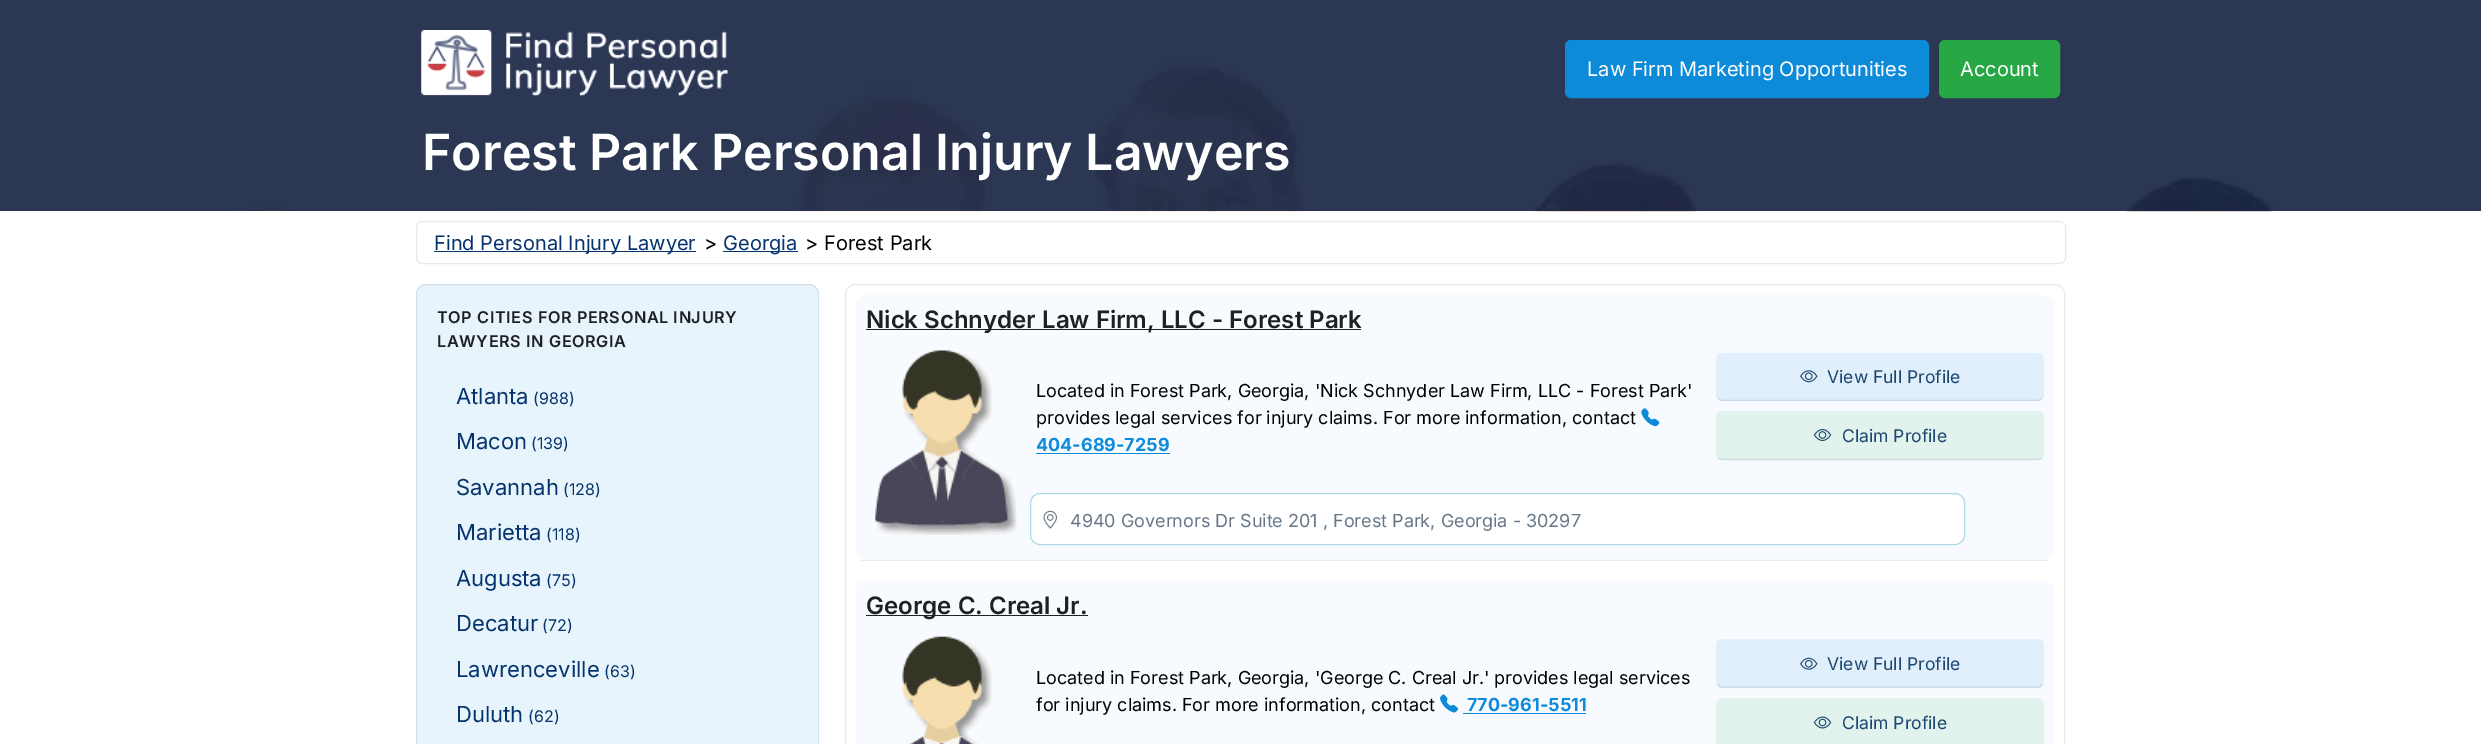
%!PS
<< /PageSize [2481 744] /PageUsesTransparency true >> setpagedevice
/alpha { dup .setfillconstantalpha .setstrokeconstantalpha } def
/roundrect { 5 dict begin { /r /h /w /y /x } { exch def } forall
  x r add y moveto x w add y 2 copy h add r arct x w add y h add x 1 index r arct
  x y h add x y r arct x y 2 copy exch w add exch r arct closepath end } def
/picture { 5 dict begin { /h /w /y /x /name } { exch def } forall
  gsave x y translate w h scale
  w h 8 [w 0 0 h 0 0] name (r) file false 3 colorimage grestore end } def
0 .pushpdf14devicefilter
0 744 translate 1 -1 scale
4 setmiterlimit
1 setgray
0 0 2481 744 rectfill
(img1.rgb) 0 0 2481 212 picture
(img2.rgb) 421 30 307 67 picture
0.051 0.545 0.851 setrgbcolor
1565.5 40.5 363 57 5.5 roundrect gsave fill grestore
stroke
/Inter-Regular [20 0 0 -20 0 0] selectfont
1 setgray
1587 76 moveto (Law Firm Marketing Opportunities) show
0.157 0.655 0.271 setrgbcolor
1939.5 40.5 120 57 5.5 roundrect gsave fill grestore
stroke
1 setgray
1960 76 moveto (Account) show
/Inter-SemiBold [50 0 0 -50 0 0] selectfont
422 170 moveto (Forest Park Personal Injury Lawyers) show
0.91 0.914 0.925 setrgbcolor
416.5 221.5 1649 42 5.5 roundrect stroke
0.02 0.2 0.431 setrgbcolor
434 251 262 1 rectfill
/Inter-Regular [20 0 0 -20 0 0] selectfont
434 250 moveto (Find Personal Injury Lawyer) show
0 setgray
704 250 moveto (>) show
0.02 0.2 0.431 setrgbcolor
723 251 75 1 rectfill
723 250 moveto (Georgia) show
0 setgray
805 250 moveto (> Forest Park) show
0.906 0.957 0.988 setrgbcolor
416 284 403 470 10 roundrect fill
0.1 alpha
0.078 0.129 0.251 setrgbcolor
416.5 284.5 402 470 9.5 roundrect stroke
/Inter-SemiBold [16.25 0 0 -16.25 0 0] selectfont
1 alpha
0.118 0.125 0.133 setrgbcolor
437 323 moveto 0.6 0 (TOP CITIES FOR PERSONAL INJURY) ashow
437 347 moveto 0.6 0 (LAWYERS IN GEORGIA) ashow
/Inter-Regular [22 0 0 -22 0 0] selectfont
0.02 0.2 0.431 setrgbcolor
456 404 moveto (Atlanta) show
/Inter-Regular [16 0 0 -16 0 0] selectfont
533 404 moveto (\(988\)) show
/Inter-Regular [22 0 0 -22 0 0] selectfont
456 449 moveto (Macon) show
/Inter-Regular [16 0 0 -16 0 0] selectfont
531 449 moveto (\(139\)) show
/Inter-Regular [22 0 0 -22 0 0] selectfont
456 495 moveto (Savannah) show
/Inter-Regular [16 0 0 -16 0 0] selectfont
563 495 moveto (\(128\)) show
/Inter-Regular [22 0 0 -22 0 0] selectfont
456 540 moveto (Marietta) show
/Inter-Regular [16 0 0 -16 0 0] selectfont
546 540 moveto (\(118\)) show
/Inter-Regular [22 0 0 -22 0 0] selectfont
456 586 moveto (Augusta) show
/Inter-Regular [16 0 0 -16 0 0] selectfont
546 586 moveto (\(75\)) show
/Inter-Regular [22 0 0 -22 0 0] selectfont
456 631 moveto (Decatur) show
/Inter-Regular [16 0 0 -16 0 0] selectfont
542 631 moveto (\(72\)) show
/Inter-Regular [22 0 0 -22 0 0] selectfont
456 677 moveto (Lawrenceville) show
/Inter-Regular [16 0 0 -16 0 0] selectfont
604 677 moveto (\(63\)) show
/Inter-Regular [22 0 0 -22 0 0] selectfont
456 722 moveto (Duluth) show
/Inter-Regular [16 0 0 -16 0 0] selectfont
528 722 moveto (\(62\)) show
0.91 0.914 0.925 setrgbcolor
845.5 284.5 1219 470 9.5 roundrect stroke
0.969 0.98 1 setrgbcolor
newpath 866 295 moveto 2044 295 lineto 2049 295 2054 299 2054 305 curveto 2054 551 lineto 2054 556 2049 560 2044 560 curveto 866 560 lineto 861 560 856 556 856 551 curveto 856 305 lineto 856 299 861 295 866 295 curveto closepath fill
0.906 0.918 0.953 setrgbcolor
861 560 1188 1 rectfill
0.118 0.125 0.133 setrgbcolor
866 329 495 1 rectfill
/Inter-SemiBold [24 0 0 -24 0 0] selectfont
866 328 moveto (Nick Schnyder Law Firm, LLC - Forest Park) show
(img3.rgb) 875 350 142 185 picture
/Inter-Regular [18 0 0 -18 0 0] selectfont
0 setgray
1036 397 moveto (Located in Forest Park, Georgia, 'Nick Schnyder Law Firm, LLC - Forest Park') show
1036 424 moveto (provides legal services for injury claims. For more information, contact) show
(img4.rgb) 1641 408 19 19 picture
/Inter-Bold [18 0 0 -18 0 0] selectfont
0.051 0.545 0.851 setrgbcolor
1036 451 moveto (404-689-7259) show
1036 453 134 1 rectfill
0.878 0.937 0.984 setrgbcolor
1716 353 328 48 6 roundrect fill
0.1 alpha
0.078 0.129 0.251 setrgbcolor
1.2 setlinewidth
newpath 2041.5 399 moveto 2040.5 400 2039 400.5 2037.5 400.5 curveto 1722.5 400.5 lineto 1721 400.5 1719.5 400 1718.5 399 curveto stroke
1 alpha
(img5.rgb) 1800 370 18 13 picture
/Inter-Regular [17.5 0 0 -17.5 0 0] selectfont
0.11 0.278 0.439 setrgbcolor
1827 383 moveto (View Full Profile) show
0.886 0.949 0.925 setrgbcolor
1716 411 328 49 6 roundrect fill
0.1 alpha
0.078 0.129 0.251 setrgbcolor
newpath 2041.5 457.5 moveto 2040.5 459 2039 459.5 2037.5 459.5 curveto 1722.5 459.5 lineto 1721 459.5 1719.5 459 1718.5 457.5 curveto stroke
1 alpha
(img6.rgb) 1813 429 19 12 picture
0.11 0.278 0.439 setrgbcolor
1842 442 moveto (Claim Profile) show
1 setgray
1030.5 493.5 934 51 9.5 roundrect gsave fill grestore
0.678 0.847 0.902 setrgbcolor
1 setlinewidth
stroke
(img7.rgb) 1043 510 14 19 picture
/Inter-Regular [18 0 0 -18 0 0] selectfont
0.404 0.467 0.533 setrgbcolor
1070 527 moveto (4940 Governors Dr Suite 201 , Forest Park, Georgia - 30297) show
0.969 0.98 1 setrgbcolor
newpath 866 581 moveto 2044 581 lineto 2049 581 2054 586 2054 591 curveto 2054 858 lineto 2054 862 2049 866 2044 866 curveto 866 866 lineto 861 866 856 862 856 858 curveto 856 591 lineto 856 586 861 581 866 581 curveto closepath fill
0.118 0.125 0.133 setrgbcolor
866 615 222 1 rectfill
/Inter-SemiBold [24 0 0 -24 0 0] selectfont
866 614 moveto (George C. Creal Jr.) show
(img8.rgb) 902 636 91 108 picture
/Inter-Regular [18 0 0 -18 0 0] selectfont
0 setgray
1036 684 moveto (Located in Forest Park, Georgia, 'George C. Creal Jr.' provides legal services) show
1036 711 moveto (for injury claims. For more information, contact) show
(img9.rgb) 1440 694 18 19 picture
/Inter-Bold [18 0 0 -18 0 0] selectfont
0.051 0.545 0.851 setrgbcolor
1467 711 moveto (770-961-5511) show
1463 713 123 1 rectfill
0.878 0.937 0.984 setrgbcolor
1716 639 328 49 6 roundrect fill
0.8 0.855 0.91 setrgbcolor
1.2 setlinewidth
newpath 2041.5 685 moveto 2040.5 686.5 2039 687 2037.5 687 curveto 1722.5 687 lineto 1721 687 1719.5 686.5 1718.5 685 curveto stroke
(img10.rgb) 1800 657 18 13 picture
/Inter-Regular [17.5 0 0 -17.5 0 0] selectfont
0.11 0.278 0.439 setrgbcolor
1827 670 moveto (View Full Profile) show
0.886 0.949 0.925 setrgbcolor
1716 698 328 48 6 roundrect fill
(img11.rgb) 1813 716 19 13 picture
0.11 0.278 0.439 setrgbcolor
1842 729 moveto (Claim Profile) show
.poppdf14devicefilter showpage
